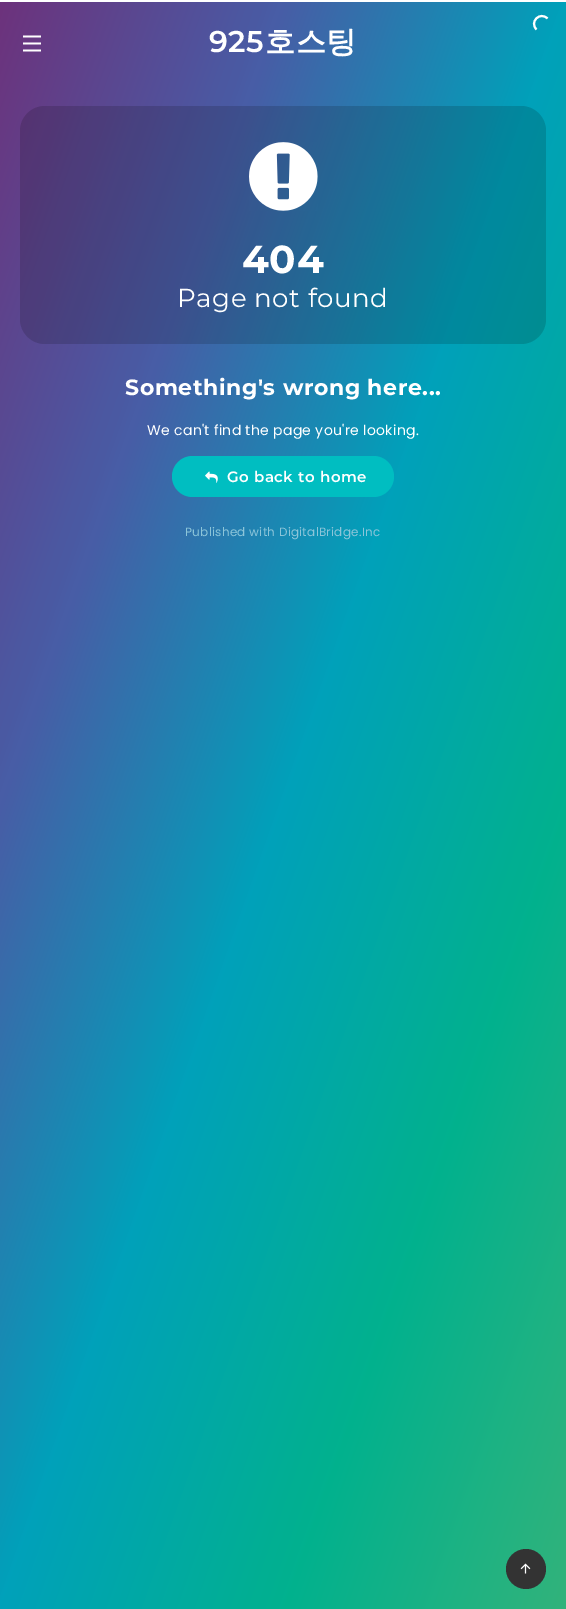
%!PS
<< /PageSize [566 1609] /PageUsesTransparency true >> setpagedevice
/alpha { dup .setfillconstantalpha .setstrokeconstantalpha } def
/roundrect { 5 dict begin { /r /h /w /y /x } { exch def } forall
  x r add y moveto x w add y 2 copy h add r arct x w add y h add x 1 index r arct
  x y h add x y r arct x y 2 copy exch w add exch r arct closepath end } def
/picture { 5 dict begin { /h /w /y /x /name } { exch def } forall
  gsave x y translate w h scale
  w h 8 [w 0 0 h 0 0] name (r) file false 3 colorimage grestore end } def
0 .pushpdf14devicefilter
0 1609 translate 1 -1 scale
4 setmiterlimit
1 setgray
0 0 566 1609 rectfill
gsave newpath 0 2 moveto 566 2 lineto 566 1609 lineto 0 1609 lineto closepath clip newpath
<< /ShadingType 2 /ColorSpace /DeviceRGB /Coords [-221 627 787 982] /Extend [true true] /Function << /FunctionType 3 /Domain [0 1] /Functions [<< /FunctionType 2 /Domain [0 1] /C0 [0.427 0.196 0.486] /C1 [0.282 0.365 0.651] /N 1 >> << /FunctionType 2 /Domain [0 1] /C0 [0.282 0.365 0.651] /C1 [0 0.631 0.729] /N 1 >> << /FunctionType 2 /Domain [0 1] /C0 [0 0.631 0.729] /C1 [0.004 0.694 0.557] /N 1 >> << /FunctionType 2 /Domain [0 1] /C0 [0.004 0.694 0.557] /C1 [0.196 0.702 0.482] /N 1 >>] /Bounds [0.25 0.5 0.75] /Encode [0 1 0 1 0 1 0 1] >> >> shfill grestore
2 setlinewidth
newpath 536.5 29.5 moveto 529 22 540 11 547.5 18.5 curveto stroke
(img1.rgb) 23 35 18 17 picture
/Montserrat-SemiBold [30 0 0 -30 0 0] selectfont
209 52 moveto 0.6 0 (925) ashow
/WenQuanYiZenHei-Bold [30 0 0 -30 0 0] selectfont
265 52 moveto 0.6 0 (호스팅) ashow
0.15 alpha
0 setgray
20 106 526 238 25 roundrect fill
1 alpha
(img2.rgb) 249 142 69 69 picture
/Montserrat-Bold [39 0 0 -39 0 0] selectfont
1 setgray
242 273 moveto 0.6 0 (404) ashow
/Montserrat-Regular [26 0 0 -26 0 0] selectfont
177 307 moveto 0.6 0 (Page not found) ashow
/Montserrat-Bold [22 0 0 -22 0 0] selectfont
125 395 moveto 0.6 0 (Something's wrong here...) ashow
/Poppins-Regular [14 0 0 -14 0 0] selectfont
147 435 moveto 0.3 0 (We can't find the page you're looking.) ashow
0 0.745 0.757 setrgbcolor
172 456 222 41 20.5 roundrect fill
(img3.rgb) 205 471 13 12 picture
/Montserrat-SemiBold [15 0 0 -15 0 0] selectfont
1 setgray
227 482 moveto 0.5 0 (Go back to home) ashow
/Poppins-Regular [12 0 0 -12 0 0] selectfont
0.549 0.773 0.851 setrgbcolor
185 536 moveto 0.3 0 (Published with DigitalBridge.Inc) ashow
0.2 setgray
newpath 526 1569 20 0 360 arc closepath fill
(img4.rgb) 520 1563 11 11 picture
.poppdf14devicefilter showpage
